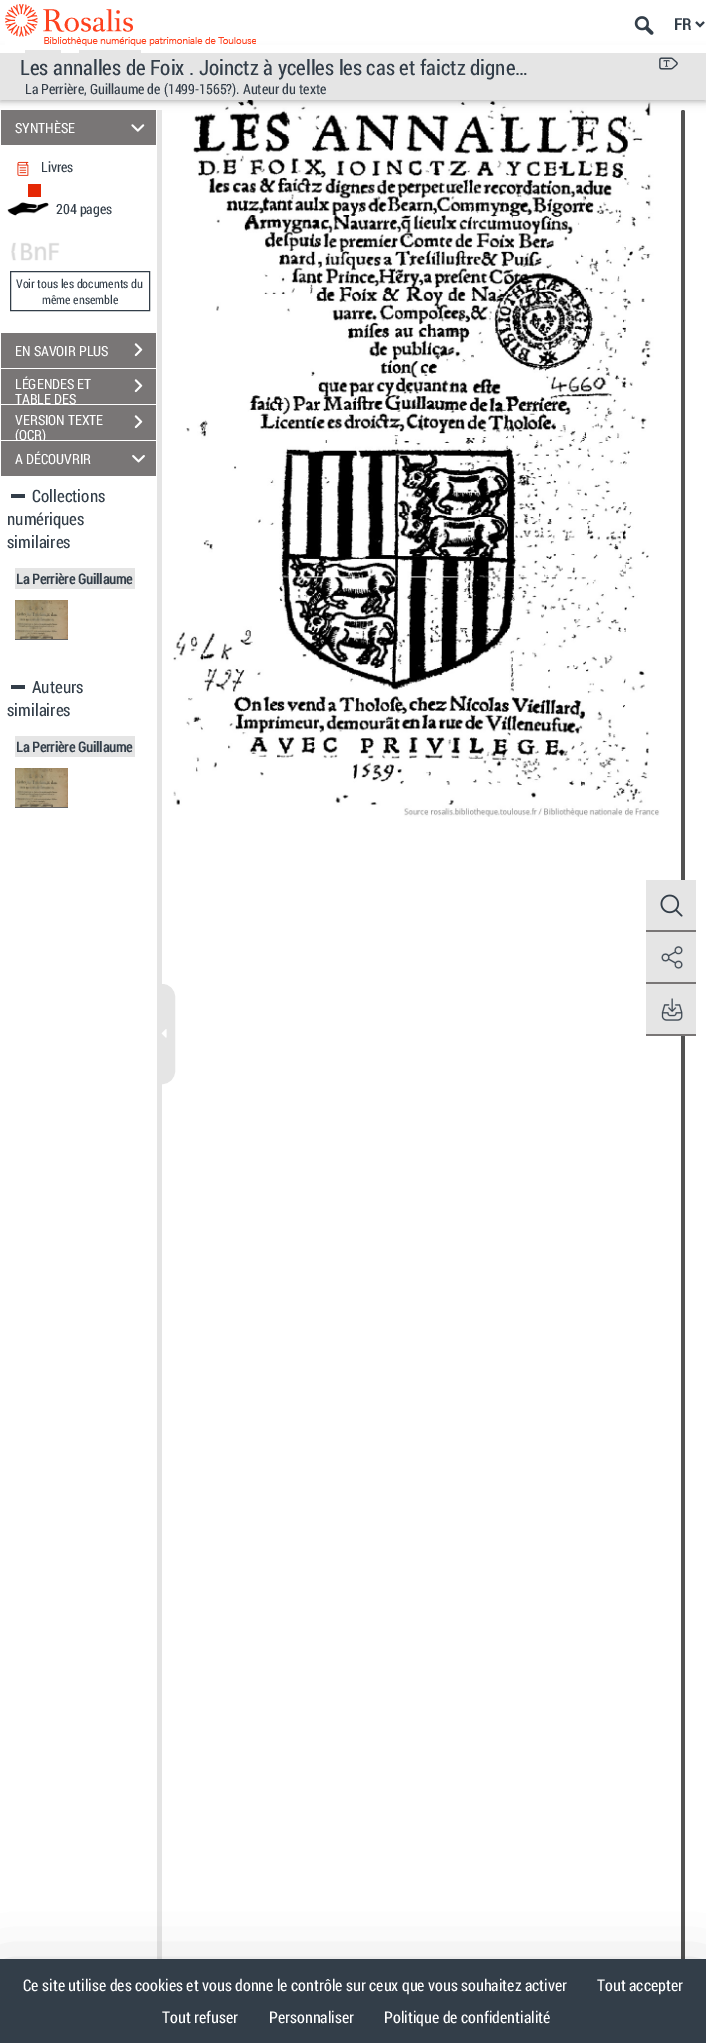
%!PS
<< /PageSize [706 2043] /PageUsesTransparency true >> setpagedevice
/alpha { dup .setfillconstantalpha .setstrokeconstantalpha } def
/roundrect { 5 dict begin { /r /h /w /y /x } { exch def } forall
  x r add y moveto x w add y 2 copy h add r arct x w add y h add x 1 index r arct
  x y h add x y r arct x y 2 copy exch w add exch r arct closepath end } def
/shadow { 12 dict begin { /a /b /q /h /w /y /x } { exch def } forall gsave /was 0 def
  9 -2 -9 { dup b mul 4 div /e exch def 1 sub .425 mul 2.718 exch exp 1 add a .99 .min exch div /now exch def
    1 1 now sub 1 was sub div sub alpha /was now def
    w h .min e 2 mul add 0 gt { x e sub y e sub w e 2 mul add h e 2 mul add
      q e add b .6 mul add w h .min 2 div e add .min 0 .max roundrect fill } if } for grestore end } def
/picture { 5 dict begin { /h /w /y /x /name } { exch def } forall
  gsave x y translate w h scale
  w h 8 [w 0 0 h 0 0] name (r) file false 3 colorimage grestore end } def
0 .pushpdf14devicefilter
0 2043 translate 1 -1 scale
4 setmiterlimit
1 setgray
0 0 706 2043 rectfill
(img12.rgb) 173 100 487 717 picture
0.322 setgray
681 110 4 1913 2 roundrect fill
0 setgray
0 52 706 50 0 5 0.12 shadow
0 52 706 50 0 2 0.16 shadow
1 setgray
0 45 706 8 rectfill
(img1.rgb) 5 4 251 42 picture
(img2.rgb) 634 16 20 19 picture
0.2 0.243 0.286 setrgbcolor
2 setlinewidth
newpath 696 22 moveto 700 26 lineto 704 22 lineto stroke
/RobotoCondensed-Bold [16 0 0 -16 0 0] selectfont
674 30 moveto (FR) show
0.898 setgray
0 53 706 47 rectfill
25 50 36 3 rectfill
79 50 62 3 rectfill
/RobotoCondensed-Regular [21 0 0 -21 0 0] selectfont
0.2 0.243 0.286 setrgbcolor
20 75 moveto (Les annalles de Foix . Joinctz à ycelles les cas et faictz digne…) show
/RobotoCondensed-Regular [14 0 0 -14 0 0] selectfont
25 94 moveto (La Perrière, Guillaume de \(1499-1565?\). Auteur du texte) show
(img3.rgb) 659 57 19 13 picture
0.898 setgray
157 110 5 1849 rectfill
0.475 0.463 0.463 setrgbcolor
1 110 155 35 rectfill
1 setgray
15 133 moveto (SYNTHÈSE) show
(img4.rgb) 131 124 14 8 picture
(img5.rgb) 17 161 12 15 picture
0.2 0.243 0.286 setrgbcolor
41 172 moveto (Livres) show
0.898 0.157 0.02 setrgbcolor
28 184 13 13 rectfill
(img6.rgb) 7 202 42 14 picture
0.2 0.243 0.286 setrgbcolor
56 214 moveto (204 pages) show
(img7.rgb) 11 242 49 19 picture
1 setlinewidth
10.5 271.5 139 39 rectstroke
/RobotoCondensed-Regular [12 0 0 -12 0 0] selectfont
16 288 moveto (Voir tous les documents du) show
42 304 moveto (même ensemble) show
0.475 0.463 0.463 setrgbcolor
1 333 155 35 rectfill
/RobotoCondensed-Regular [14 0 0 -14 0 0] selectfont
1 setgray
15 356 moveto (EN SAVOIR PLUS) show
(img8.rgb) 134 343 9 14 picture
0.475 0.463 0.463 setrgbcolor
1 369 155 35 rectfill
1 setgray
15 389 moveto (LÉGENDES ET) show
(img8.rgb) 134 379 9 14 picture
15 404 moveto (TABLE DES) show
0.475 0.463 0.463 setrgbcolor
1 405 155 35 rectfill
1 setgray
15 425 moveto (VERSION TEXTE) show
(img8.rgb) 134 415 9 14 picture
15 440 moveto (\(OCR\)) show
0.475 0.463 0.463 setrgbcolor
1 441 155 35 rectfill
1 setgray
15 464 moveto (A DÉCOUVRIR) show
(img9.rgb) 132 455 13 8 picture
/RobotoCondensed-Regular [17 0 0 -17 0 0] selectfont
0.2 0.243 0.286 setrgbcolor
32 502 moveto (Collections) show
11 494 14 4 rectfill
7 525 moveto (numériques) show
7 548 moveto (similaires) show
0.898 setgray
15 568 120 21 rectfill
/RobotoCondensed-Bold [14 0 0 -14 0 0] selectfont
0.2 0.243 0.286 setrgbcolor
16 584 moveto (La Perrière Guillaume) show
(img10.rgb) 15 600 53 39 picture
0.404 setgray
15 639 53 1 rectfill
/RobotoCondensed-Regular [17 0 0 -17 0 0] selectfont
0.2 0.243 0.286 setrgbcolor
32 693 moveto (Auteurs) show
11 685 14 4 rectfill
7 716 moveto (similaires) show
0.898 setgray
15 736 120 21 rectfill
/RobotoCondensed-Bold [14 0 0 -14 0 0] selectfont
0.2 0.243 0.286 setrgbcolor
16 752 moveto (La Perrière Guillaume) show
(img10.rgb) 15 768 53 39 picture
0.404 setgray
15 807 53 1 rectfill
0.898 setgray
newpath 162.5 984.5 moveto 162 984.5 lineto 169 984.5 174.5 990 174.5 997 curveto 174.5 1071 lineto 174.5 1078 169 1083.5 162 1083.5 curveto 162.5 1083.5 lineto closepath gsave fill grestore
stroke
(img11.rgb) 161 1029 6 9 picture
646 880 50 50 rectfill
(img13.rgb) 660 894 23 23 picture
0.475 0.463 0.463 setrgbcolor
646 930 50 2 rectfill
0.898 setgray
646 932 50 50 rectfill
(img14.rgb) 661 946 22 23 picture
0.475 0.463 0.463 setrgbcolor
646 982 50 2 rectfill
0.898 setgray
646 984 50 50 rectfill
(img15.rgb) 661 998 22 23 picture
0.475 0.463 0.463 setrgbcolor
646 1034 50 2 rectfill
0 setgray
0 1979 706 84 0 30 0.25 shadow
0.2 0.243 0.286 setrgbcolor
0 1959 706 84 rectfill
/RobotoCondensed-Regular [16 0 0 -16 0 0] selectfont
1 setgray
23 1991 moveto (Ce site utilise des cookies et vous donne le contrôle sur ceux que vous souhaitez activer) show
597 1991 moveto (Tout accepter) show
162 2023 moveto (Tout refuser) show
269 2023 moveto (Personnaliser) show
384 2023 moveto (Politique de confidentialité) show
.poppdf14devicefilter showpage
